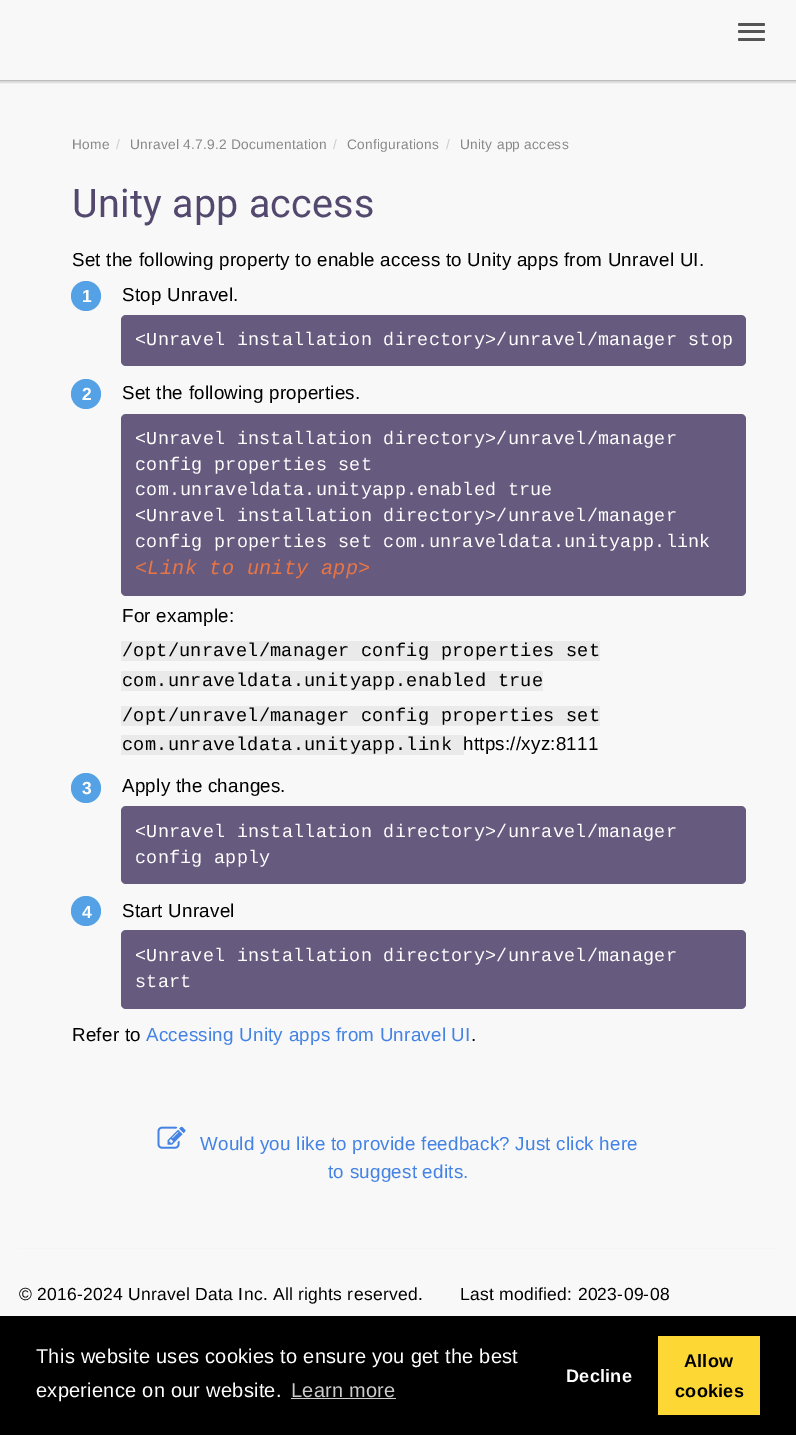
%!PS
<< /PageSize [796 1435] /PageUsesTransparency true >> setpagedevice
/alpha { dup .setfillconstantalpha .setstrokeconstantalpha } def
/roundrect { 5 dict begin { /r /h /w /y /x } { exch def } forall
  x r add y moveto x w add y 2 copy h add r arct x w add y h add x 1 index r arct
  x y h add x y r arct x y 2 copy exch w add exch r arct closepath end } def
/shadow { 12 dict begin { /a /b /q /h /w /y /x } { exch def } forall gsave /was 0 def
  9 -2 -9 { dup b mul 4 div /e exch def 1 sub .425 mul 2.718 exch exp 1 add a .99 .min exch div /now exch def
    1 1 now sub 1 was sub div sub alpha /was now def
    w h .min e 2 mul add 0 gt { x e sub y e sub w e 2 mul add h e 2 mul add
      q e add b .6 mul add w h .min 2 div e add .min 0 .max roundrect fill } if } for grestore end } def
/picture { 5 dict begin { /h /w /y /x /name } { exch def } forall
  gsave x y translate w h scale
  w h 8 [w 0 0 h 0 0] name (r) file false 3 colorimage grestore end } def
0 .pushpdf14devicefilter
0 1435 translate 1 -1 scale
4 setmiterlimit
0.973 setgray
0 0 796 1435 rectfill
gsave
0 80 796 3 rectclip
0 setgray
-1 -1 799 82 0 3 0.08 shadow
grestore
gsave
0 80 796 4 rectclip
0 setgray
-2 -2 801 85 0 1 0.1 shadow
grestore
gsave
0 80 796 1 rectclip
0 setgray
-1 -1 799 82 0 0.5 0.14 shadow
grestore
0.333 setgray
738 23 27 3 1.5 roundrect fill
738 30 27 3 1.5 roundrect fill
738 38 27 3 1.5 roundrect fill
/LiberationSans-Regular [13.75 0 0 -13.75 0 0] selectfont
0.533 setgray
72 149 moveto 0.25 0 (Home) ashow
0.8 setgray
116 149 moveto 0.25 0 (/) ashow
0.533 setgray
130 149 moveto 0.25 0 (Unravel 4.7.9.2 Documentation) ashow
0.8 setgray
333 149 moveto 0.25 0 (/) ashow
0.533 setgray
347 149 moveto 0.25 0 (Configurations) ashow
0.8 setgray
446 149 moveto 0.25 0 (/) ashow
0.533 setgray
460 149 moveto 0.25 0 (Unity app access) ashow
/Roboto-Regular [39.5 0 0 -39.5 0 0] selectfont
0.325 0.282 0.431 setrgbcolor
72 217 moveto 0.25 0 (Unity app access) ashow
/LiberationSans-Regular [18.75 0 0 -18.75 0 0] selectfont
0 setgray
72 266 moveto 0.25 0 (Set the following property to enable access to Unity apps from Unravel UI.) ashow
0.329 0.631 0.898 setrgbcolor
newpath 86 296 15 0 360 arc closepath fill
/LiberationSans-Bold [17.5 0 0 -17.5 0 0] selectfont
1 setgray
82 302 moveto 0.25 0 (1) ashow
/LiberationSans-Regular [18.75 0 0 -18.75 0 0] selectfont
0 setgray
122 301 moveto 0.25 0 (Stop Unravel.) ashow
0.4 0.357 0.494 setrgbcolor
121 315 625 51 5 roundrect fill
/LiberationMono-Regular [18.4 0 0 -18.4 0 0] selectfont
1 setgray
135 345 moveto 0.25 0 (<Unravel installation directory>/unravel/manager stop) ashow
0.329 0.631 0.898 setrgbcolor
newpath 86 394 15 0 360 arc closepath fill
/LiberationSans-Bold [17.5 0 0 -17.5 0 0] selectfont
1 setgray
82 400 moveto 0.25 0 (2) ashow
/LiberationSans-Regular [18.75 0 0 -18.75 0 0] selectfont
0 setgray
122 399 moveto 0.25 0 (Set the following properties.) ashow
0.4 0.357 0.494 setrgbcolor
121 414 625 182 5 roundrect fill
/LiberationMono-Regular [18.4 0 0 -18.4 0 0] selectfont
1 setgray
135 444 moveto 0.25 0 (<Unravel installation directory>/unravel/manager) ashow
135 470 moveto 0.25 0 (config properties set) ashow
135 495 moveto 0.25 0 (com.unraveldata.unityapp.enabled true) ashow
135 521 moveto 0.25 0 (<Unravel installation directory>/unravel/manager) ashow
135 547 moveto 0.25 0 (config properties set com.unraveldata.unityapp.link) ashow
/LiberationMono-Italic [20.25 0 0 -20.25 0 0] selectfont
0.914 0.455 0.267 setrgbcolor
135 574 moveto 0.25 0 (<Link to unity app>) ashow
/LiberationSans-Regular [18.75 0 0 -18.75 0 0] selectfont
0 setgray
122 622 moveto 0.25 0 (For example:) ashow
0.918 setgray
121 641 479 20 rectfill
/LiberationMono-Regular [18.55 0 0 -18.55 0 0] selectfont
0 setgray
122 656 moveto 0.25 0 (/opt/unravel/manager config properties set) ashow
0.918 setgray
121 671 422 20 rectfill
0 setgray
122 686 moveto 0.25 0 (com.unraveldata.unityapp.enabled true) ashow
0.918 setgray
121 706 479 20 rectfill
0 setgray
122 721 moveto 0.25 0 (/opt/unravel/manager config properties set) ashow
0.918 setgray
121 735 343 20 rectfill
0 setgray
122 750 moveto 0.25 0 (com.unraveldata.unityapp.link) ashow
/LiberationSans-Regular [18.75 0 0 -18.75 0 0] selectfont
463 750 moveto 0.25 0 (https://xyz:8111) ashow
0.329 0.631 0.898 setrgbcolor
newpath 86 788 15 0 360 arc closepath fill
/LiberationSans-Bold [17.5 0 0 -17.5 0 0] selectfont
1 setgray
82 794 moveto 0.25 0 (3) ashow
/LiberationSans-Regular [18.75 0 0 -18.75 0 0] selectfont
0 setgray
122 792 moveto 0.25 0 (Apply the changes.) ashow
0.4 0.357 0.494 setrgbcolor
121 806 625 78 5 roundrect fill
/LiberationMono-Regular [18.4 0 0 -18.4 0 0] selectfont
1 setgray
135 837 moveto 0.25 0 (<Unravel installation directory>/unravel/manager) ashow
135 863 moveto 0.25 0 (config apply) ashow
0.329 0.631 0.898 setrgbcolor
newpath 86 911 15 0 360 arc closepath fill
/LiberationSans-Bold [17.5 0 0 -17.5 0 0] selectfont
1 setgray
82 918 moveto 0.25 0 (4) ashow
/LiberationSans-Regular [18.75 0 0 -18.75 0 0] selectfont
0 setgray
122 917 moveto 0.25 0 (Start Unravel) ashow
0.4 0.357 0.494 setrgbcolor
121 930 625 79 5 roundrect fill
/LiberationMono-Regular [18.4 0 0 -18.4 0 0] selectfont
1 setgray
135 961 moveto 0.25 0 (<Unravel installation directory>/unravel/manager) ashow
135 987 moveto 0.25 0 (start) ashow
/LiberationSans-Regular [18.75 0 0 -18.75 0 0] selectfont
0 setgray
72 1041 moveto 0.25 0 (Refer to) ashow
0.267 0.51 0.89 setrgbcolor
146 1041 moveto 0.25 0 (Accessing Unity apps from Unravel UI) ashow
0 setgray
471 1041 moveto 0.25 0 (.) ashow
(img1.rgb) 157 1126 29 23 picture
0.267 0.51 0.89 setrgbcolor
200 1150 moveto 0.25 0 (Would you like to provide feedback? Just click here) ashow
328 1178 moveto 0.25 0 (to suggest edits.) ashow
0.961 setgray
19 1248 759 1 rectfill
/LiberationSans-Regular [17.5 0 0 -17.5 0 0] selectfont
0 setgray
19 1300 moveto 0.25 0 (© 2016-2024 Unravel Data Inc. All rights reserved.) ashow
460 1300 moveto 0.25 0 (Last modified: 2023-09-08) ashow
0 1316 796 119 rectfill
/LiberationSans-Regular [20 0 0 -20 0 0] selectfont
1 setgray
36 1363 moveto 0.25 0 (This website uses cookies to ensure you get the best) ashow
36 1397 moveto 0.25 0 (experience on our website.) ashow
0.8 setgray
291 1397 moveto 0.25 0 (Learn more) ashow
291 1398 105 1 rectfill
/LiberationSans-Bold [18 0 0 -18 0 0] selectfont
1 setgray
566 1382 moveto 0.25 0 (Decline) ashow
0.992 0.847 0.208 setrgbcolor
658 1336 102 79 rectfill
0 setgray
684 1367 moveto 0.25 0 (Allow) ashow
675 1397 moveto 0.25 0 (cookies) ashow
.poppdf14devicefilter showpage
